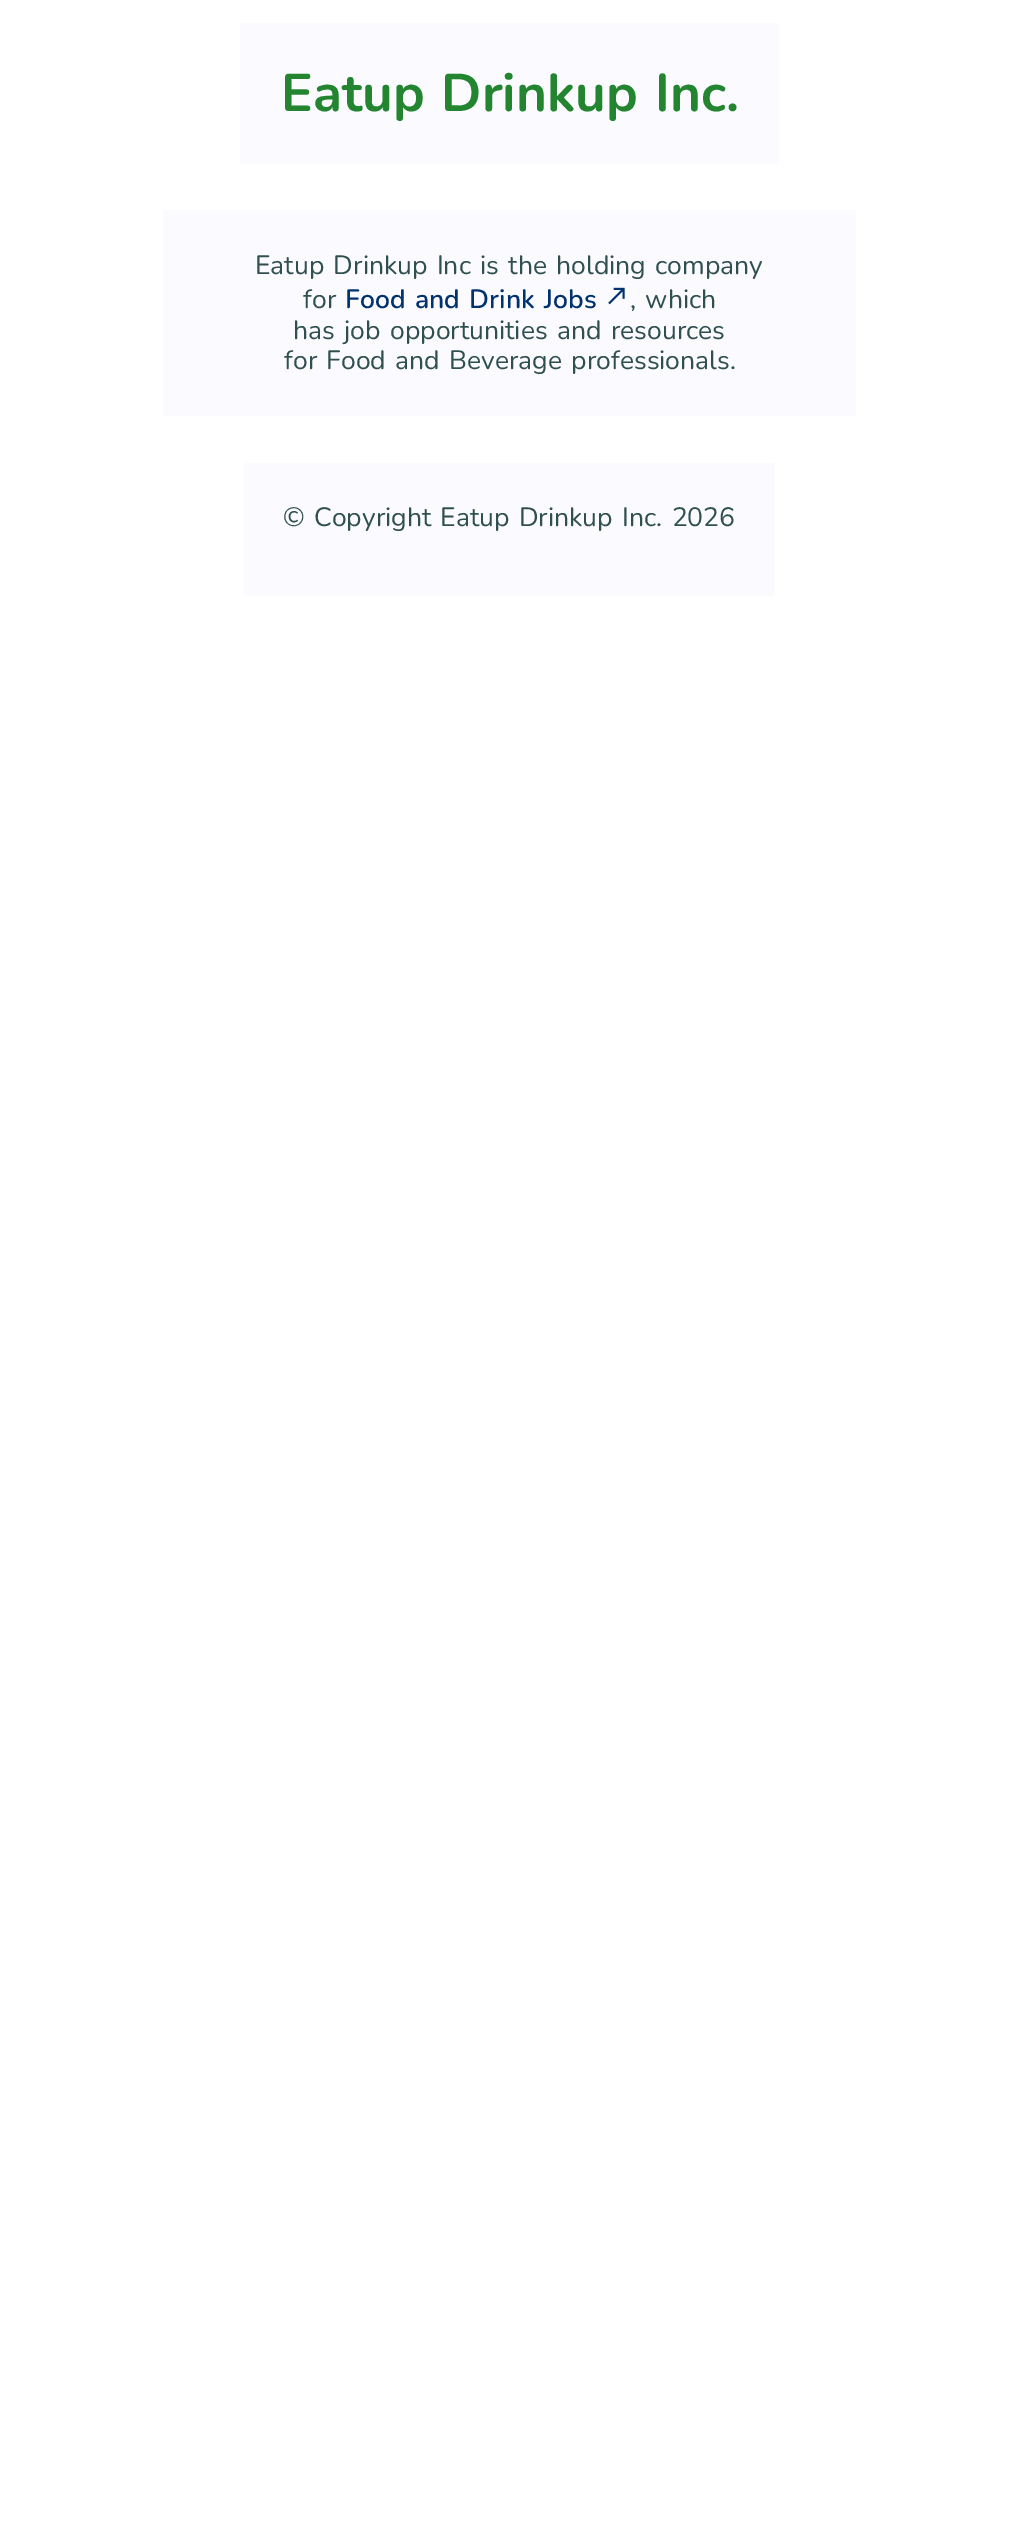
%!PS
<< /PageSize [1018 2540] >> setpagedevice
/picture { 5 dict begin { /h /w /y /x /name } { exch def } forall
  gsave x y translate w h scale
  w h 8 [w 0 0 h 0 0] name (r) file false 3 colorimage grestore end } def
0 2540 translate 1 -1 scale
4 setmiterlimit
1 setgray
0 0 1018 2540 rectfill
0.98 0.98 1 setrgbcolor
240 23 539 141 rectfill
/Nunito-Bold [53 0 0 -53 0 0] selectfont
0.137 0.522 0.188 setrgbcolor
281 111 moveto 2.5 0 32 (Eatup Drinkup Inc.) widthshow
0.98 0.98 1 setrgbcolor
163 210 693 206 rectfill
/Nunito-Regular [26.5 0 0 -26.5 0 0] selectfont
0.188 0.314 0.314 setrgbcolor
255 274 moveto 2.5 0 32 (Eatup Drinkup Inc is the holding company) widthshow
303 308 moveto (for) show
/Nunito-SemiBold [26.5 0 0 -26.5 0 0] selectfont
0 0.196 0.439 setrgbcolor
345 308 moveto 2.5 0 32 (Food and Drink Jobs) widthshow
(img1.rgb) 608 287 17 18 picture
/Nunito-Regular [26.5 0 0 -26.5 0 0] selectfont
0.188 0.314 0.314 setrgbcolor
630 308 moveto 2.5 0 32 (, which) widthshow
293 339 moveto 2.5 0 32 (has job opportunities and resources) widthshow
284 369 moveto 2.5 0 32 (for Food and Beverage professionals.) widthshow
0.98 0.98 1 setrgbcolor
244 463 531 133 rectfill
0.188 0.314 0.314 setrgbcolor
283 526 moveto 2.5 0 32 (© Copyright Eatup Drinkup Inc. 2026) widthshow
showpage
